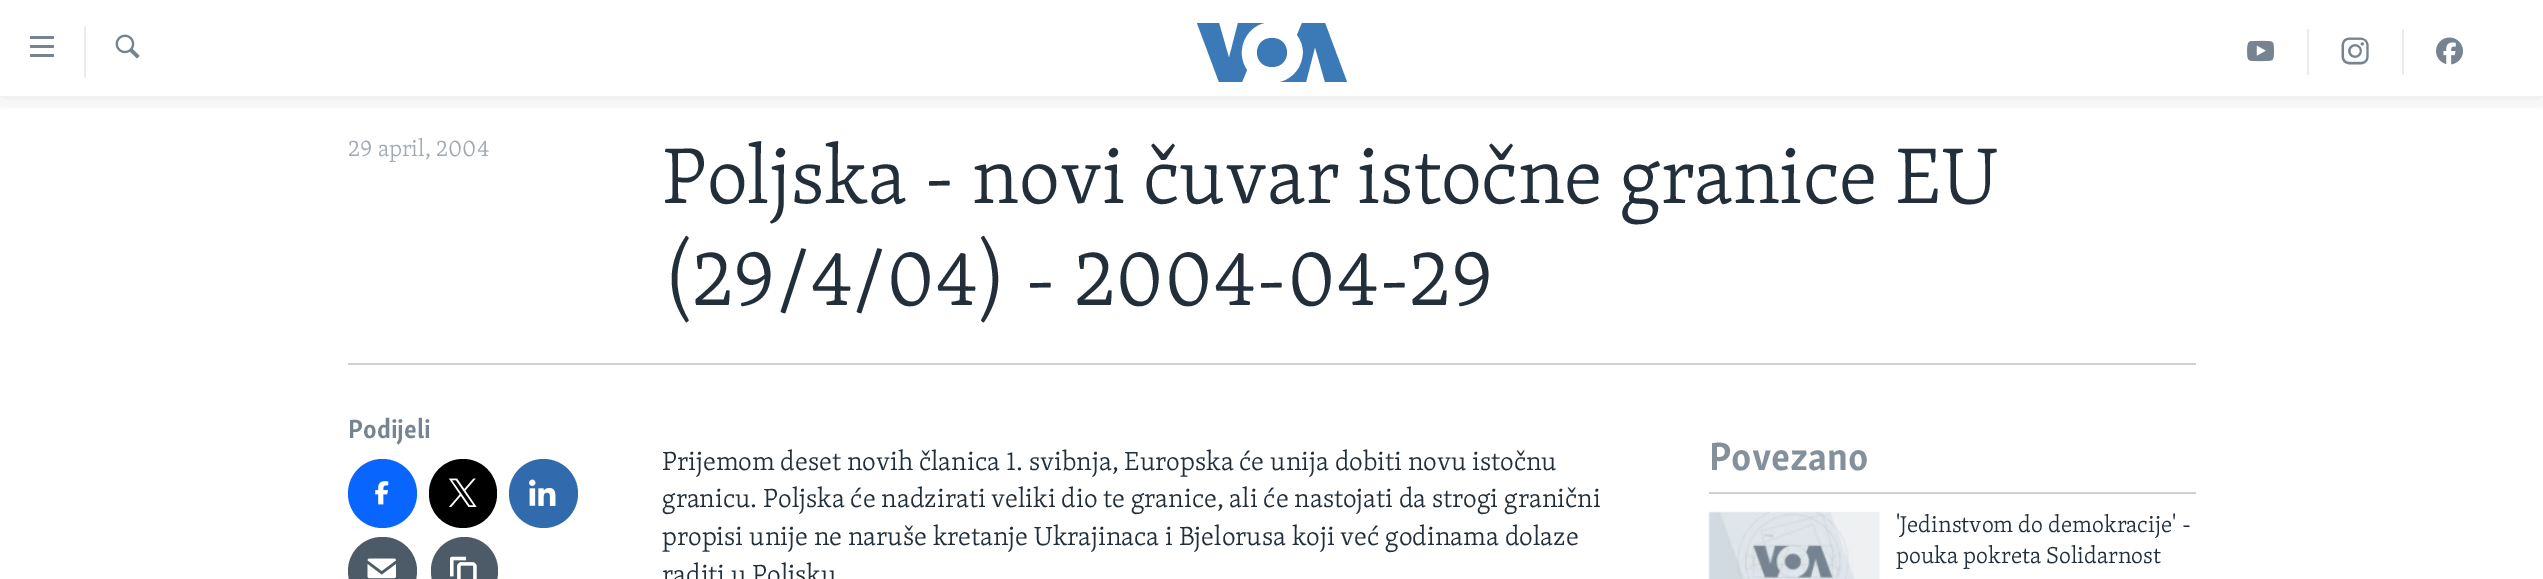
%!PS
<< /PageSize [2543 579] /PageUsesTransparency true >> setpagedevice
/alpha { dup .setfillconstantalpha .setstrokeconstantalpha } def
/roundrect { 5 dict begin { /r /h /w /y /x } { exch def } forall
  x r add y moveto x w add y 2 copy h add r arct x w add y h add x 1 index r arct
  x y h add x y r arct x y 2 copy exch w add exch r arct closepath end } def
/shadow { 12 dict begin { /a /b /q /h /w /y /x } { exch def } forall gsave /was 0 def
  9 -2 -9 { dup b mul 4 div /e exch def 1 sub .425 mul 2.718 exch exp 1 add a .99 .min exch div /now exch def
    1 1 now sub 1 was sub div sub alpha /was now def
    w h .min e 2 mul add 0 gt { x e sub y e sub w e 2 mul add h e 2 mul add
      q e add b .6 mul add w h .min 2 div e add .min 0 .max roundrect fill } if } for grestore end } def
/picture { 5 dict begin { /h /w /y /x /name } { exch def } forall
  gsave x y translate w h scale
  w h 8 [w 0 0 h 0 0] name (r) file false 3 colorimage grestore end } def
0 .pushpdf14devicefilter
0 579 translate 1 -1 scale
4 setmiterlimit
1 setgray
0 0 2543 579 rectfill
gsave
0 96 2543 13 rectclip
0 setgray
0 0 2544 96 0 15 0.1 shadow
grestore
(img1.rgb) 30 36 24 21 picture
0.922 setgray
84 26 2 52 rectfill
(img2.rgb) 115 34 25 25 picture
0.231 0.475 0.718 setrgbcolor
newpath 1247 70 moveto 1242 82 lineto 1219 82 lineto 1197 23 lineto 1219 23 lineto 1229 58 lineto 1238 23 lineto 1264 23 lineto 1244 28 1235 53 1247 70 curveto closepath 1272 38 moveto 1252 38 1252 67 1272 67 curveto 1292 67 1292 38 1272 38 curveto closepath 1303 52 moveto 1303 67 1293 79 1280 82 curveto 1306 82 lineto 1315 47 lineto 1325 82 lineto 1347 82 lineto 1325 23 lineto 1302 23 lineto 1297 35 lineto 1301 40 1303 46 1303 52 curveto closepath fill
0.922 setgray
2307 29 2 46 rectfill
(img3.rgb) 2247 40 27 22 picture
2402 29 2 46 rectfill
(img4.rgb) 2341 37 28 28 picture
(img5.rgb) 2436 37 27 28 picture
/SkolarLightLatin-Light [23.6 0 0 -23.6 0 0] selectfont
0.631 0.667 0.706 setrgbcolor
348 156 moveto (29 april, 2004) show
/SkolarLightLatin-Light [81 0 0 -81 0 0] selectfont
0.133 0.184 0.227 setrgbcolor
662 203 moveto (Poljska - novi čuvar istočne granice EU) show
662 305 moveto (\(29/4/04\) - 2004-04-29) show
0.796 0.82 0.839 setrgbcolor
348 363 1848 2 rectfill
/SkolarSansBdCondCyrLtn-Bold [27 0 0 -27 0 0] selectfont
0.463 0.518 0.573 setrgbcolor
348 438 moveto (Podijeli) show
0.031 0.4 1 setrgbcolor
newpath 382.5 493.5 34.5 0 360 arc closepath fill
(img6.rgb) 375 481 14 24 picture
0 setgray
429 459 68 69 34 roundrect fill
(img7.rgb) 449 478 28 29 picture
0.192 0.42 0.682 setrgbcolor
newpath 543.5 493.5 34.5 0 360 arc closepath fill
(img8.rgb) 529 479 27 27 picture
0.302 0.353 0.404 setrgbcolor
348 537 69 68 34 roundrect fill
(img9.rgb) 367 558 29 21 picture
431 537 67 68 33.5 roundrect fill
(img10.rgb) 450 556 27 23 picture
/SkolarLightLatin-Light [27 0 0 -27 0 0] selectfont
0.133 0.184 0.227 setrgbcolor
662 470 moveto (Prijemom deset novih članica 1. svibnja, Europska će unija dobiti novu istočnu) show
662 507 moveto (granicu. Poljska će nadzirati veliki dio te granice, ali će nastojati da strogi granični) show
662 545 moveto (propisi unije ne naruše kretanje Ukrajinaca i Bjelorusa koji već godinama dolaze) show
662 583 moveto (raditi u Poljsku) show
0.796 0.82 0.839 setrgbcolor
1709 492 487 2 rectfill
/SkolarSansBdCondCyrLtn-Bold [40.5 0 0 -40.5 0 0] selectfont
0.518 0.569 0.616 setrgbcolor
1709 470 moveto (Povezano) show
0.965 0.969 0.973 setrgbcolor
1709 512 171 67 rectfill
(img11.rgb) 1708 511 171 68 picture
/SkolarLightLatin-Light [23.6 0 0 -23.6 0 0] selectfont
0.133 0.184 0.227 setrgbcolor
1896 532 moveto ('Jedinstvom do demokracije' -) show
1896 563 moveto (pouka pokreta Solidarnost) show
.poppdf14devicefilter showpage
